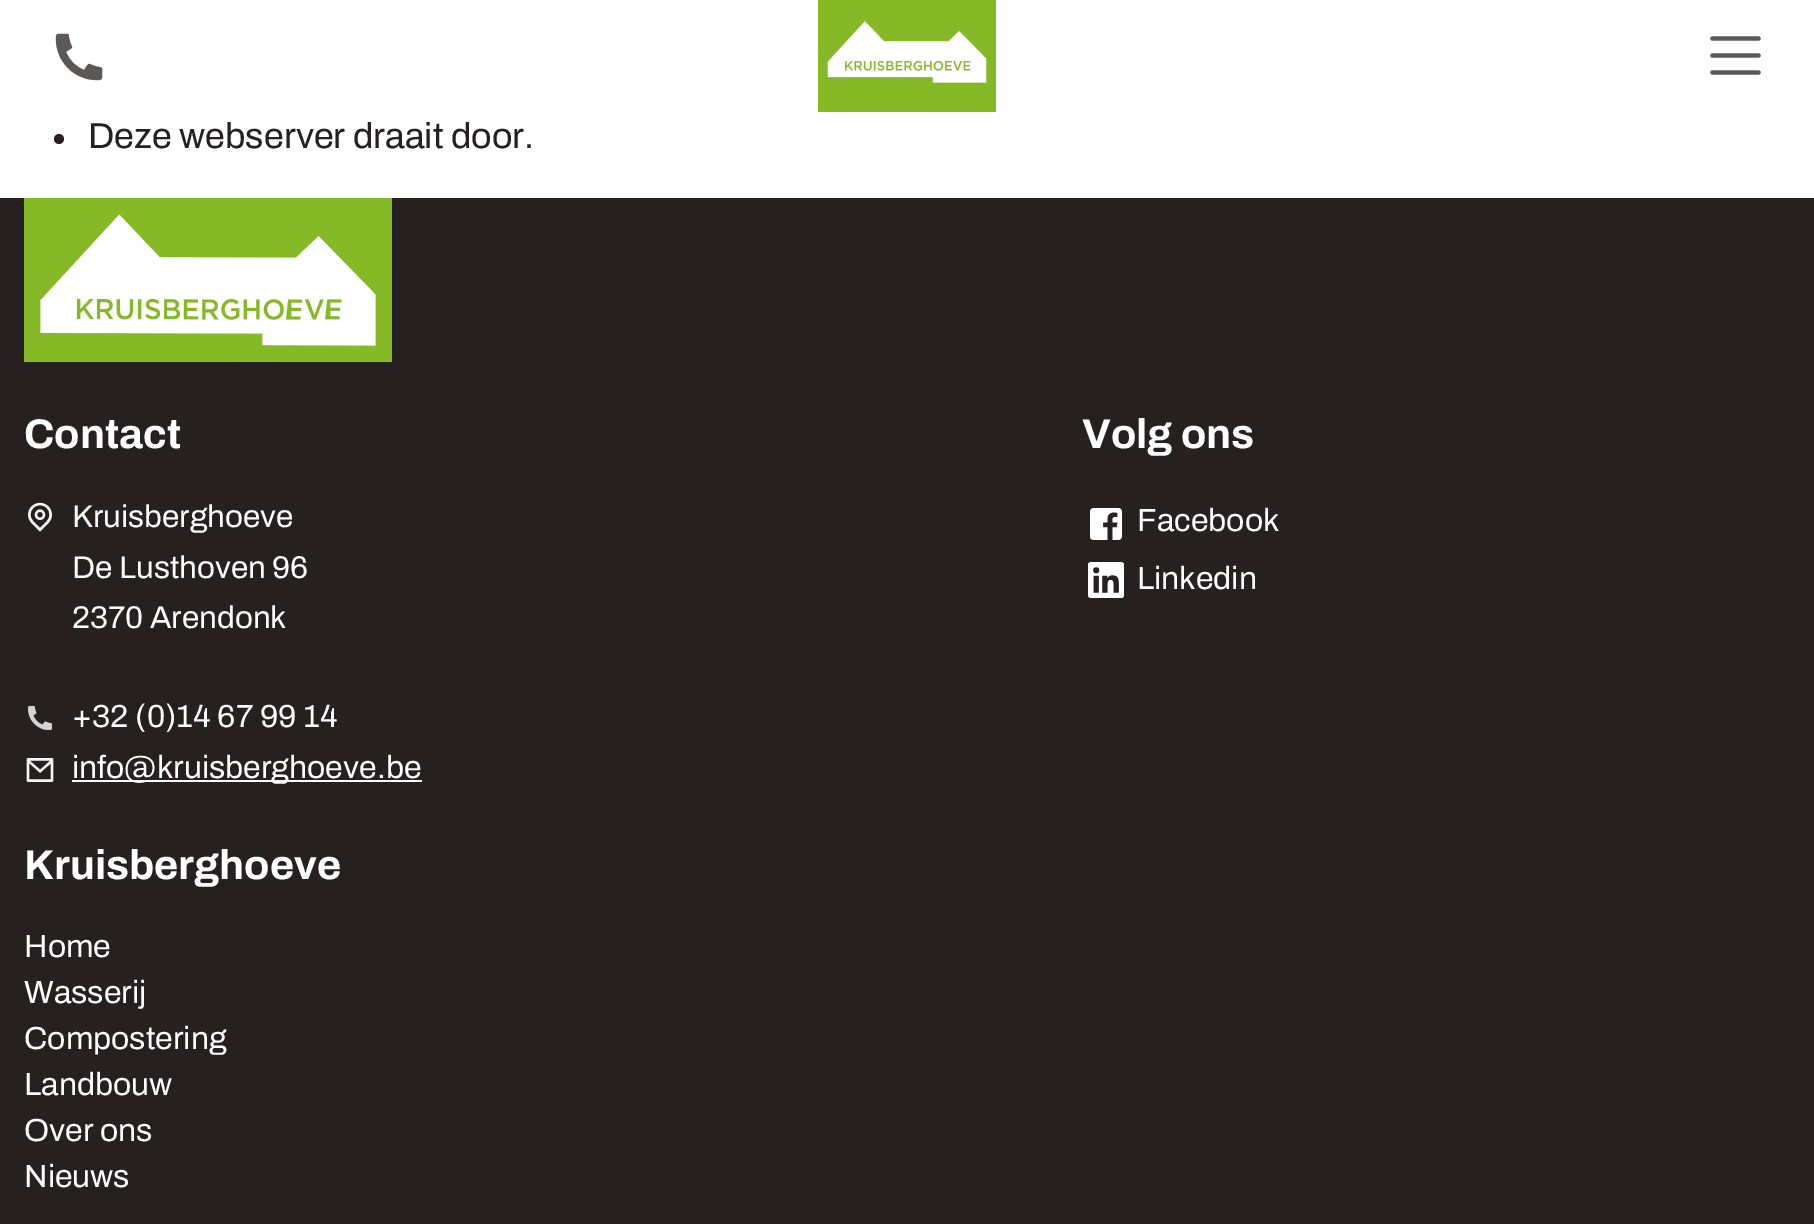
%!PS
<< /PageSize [1814 1224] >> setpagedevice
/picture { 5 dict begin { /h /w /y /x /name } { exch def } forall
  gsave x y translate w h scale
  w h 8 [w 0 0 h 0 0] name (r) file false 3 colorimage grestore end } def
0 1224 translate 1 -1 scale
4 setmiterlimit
1 setgray
0 0 1814 1224 rectfill
(img1.rgb) 55 33 48 48 picture
(img2.rgb) 818 0 178 112 picture
0.365 0.345 0.345 setrgbcolor
4.2 setlinewidth
1 setlinecap
newpath 1712.5 38.5 moveto 1758.5 38.5 lineto 1712.5 55.5 moveto 1758.5 55.5 lineto 1712.5 72.5 moveto 1758.5 72.5 lineto stroke
0.153 0.125 0.125 setrgbcolor
newpath 59 139 5 0 360 arc closepath fill
/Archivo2-SemiBold [36 0 0 -36 0 0] selectfont
88 148 moveto (Deze webserver draait door.) show
0 198 1814 1026 rectfill
0.522 0.725 0.149 setrgbcolor
24 198 368 164 rectfill
(img3.rgb) 40 214 336 132 picture
/Archivo-SemiBold [41.5 0 0 -41.5 0 0] selectfont
1 setgray
24 448 moveto (Contact) show
(img4.rgb) 28 502 24 30 picture
/Archivo2-SemiBold [31.5 0 0 -31.5 0 0] selectfont
72 527 moveto (Kruisberghoeve) show
72 578 moveto (De Lusthoven 96) show
72 628 moveto (2370 Arendonk) show
(img5.rgb) 28 706 24 24 picture
/Archivo2-SemiBold [32 0 0 -32 0 0] selectfont
72 727 moveto (+32 \(0\)14 67 99 14) show
(img6.rgb) 26 758 28 24 picture
72 780 350 2 rectfill
72 778 moveto (info@kruisberghoeve.be) show
/Archivo-SemiBold [41.5 0 0 -41.5 0 0] selectfont
1082 448 moveto (Volg ons) show
(img7.rgb) 1090 508 32 32 picture
/Archivo2-SemiBold [32 0 0 -32 0 0] selectfont
1137 531 moveto (Facebook) show
(img8.rgb) 1088 562 36 36 picture
1137 589 moveto (Linkedin) show
/Archivo-SemiBold [41.5 0 0 -41.5 0 0] selectfont
24 879 moveto (Kruisberghoeve) show
/Archivo2-SemiBold [32 0 0 -32 0 0] selectfont
24 957 moveto (Home) show
24 1003 moveto (Wasserij) show
24 1049 moveto (Compostering) show
24 1095 moveto (Landbouw) show
24 1141 moveto (Over ons) show
24 1187 moveto (Nieuws) show
showpage
